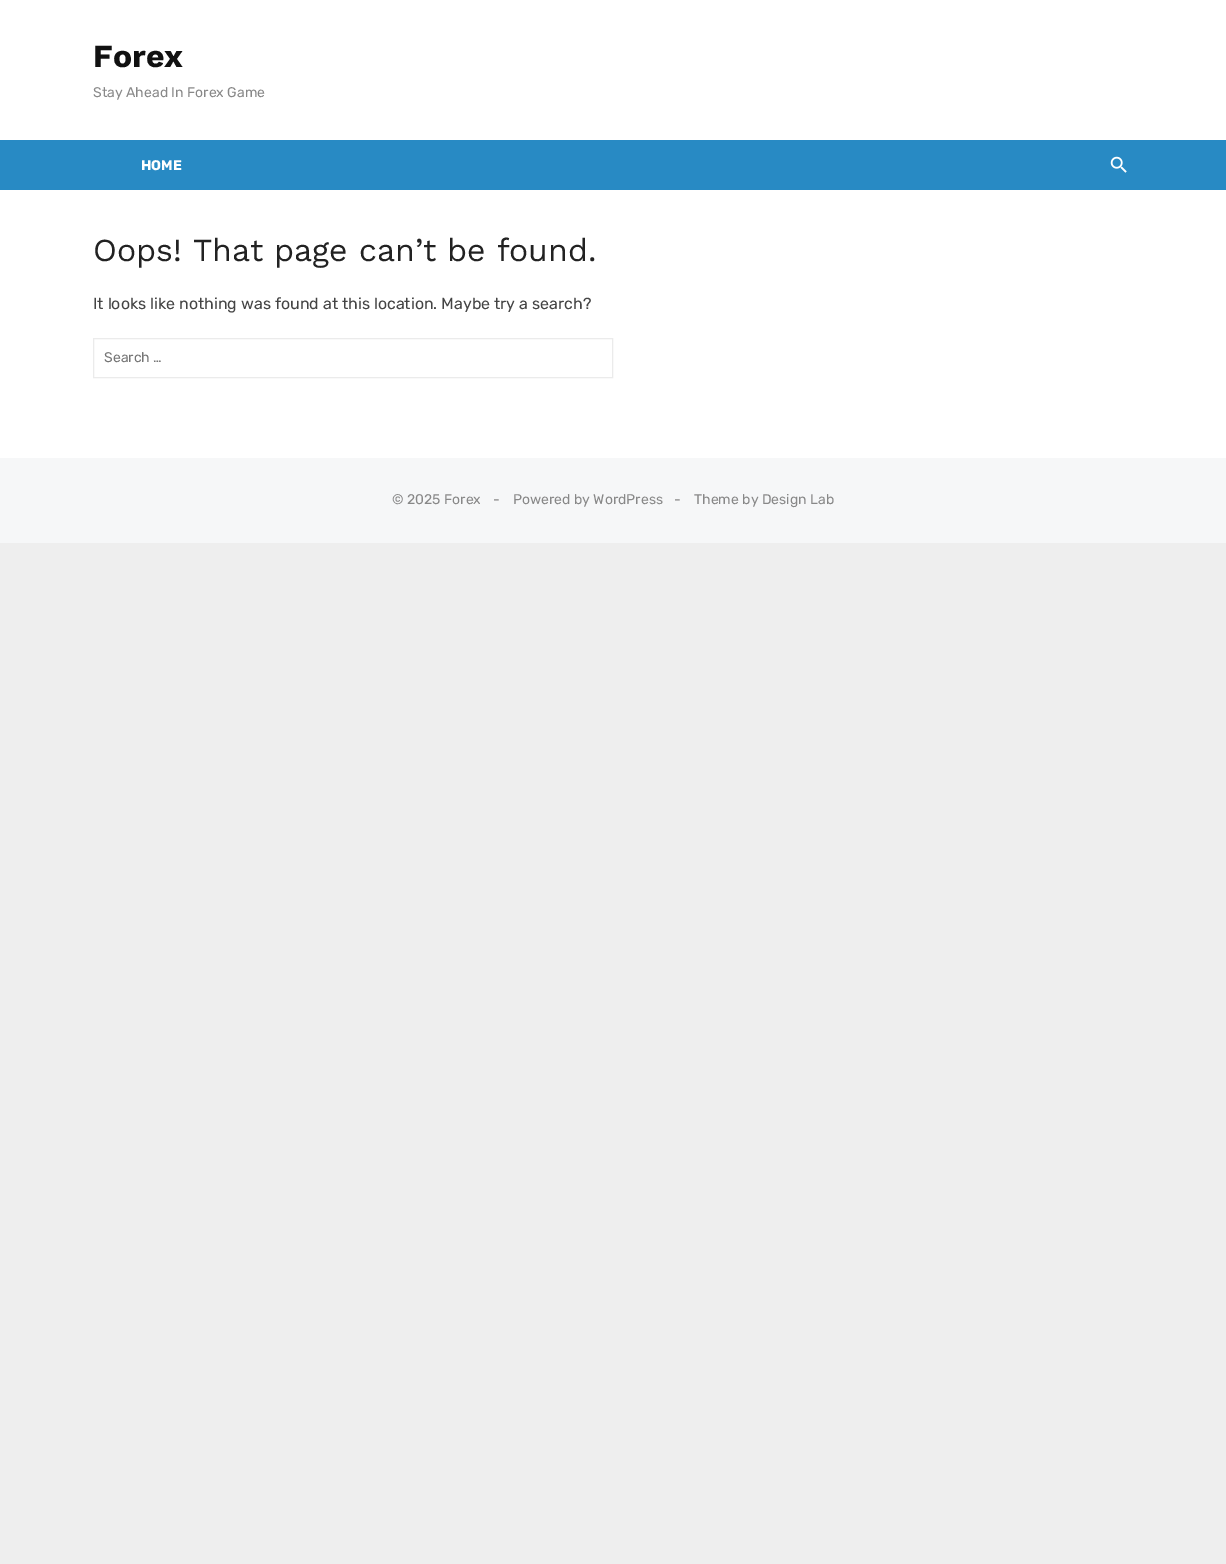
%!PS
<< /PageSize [1226 1564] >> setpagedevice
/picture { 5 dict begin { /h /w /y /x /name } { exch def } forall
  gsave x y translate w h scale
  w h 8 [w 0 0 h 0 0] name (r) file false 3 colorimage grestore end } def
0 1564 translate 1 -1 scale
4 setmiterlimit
0.933 setgray
0 0 1226 1564 rectfill
1 setgray
0 0 1226 458 rectfill
/WorkSans-Bold [32 0 0 -32 0 0] selectfont
0.067 setgray
93 67 moveto (Forex) show
/Rubik-Regular [14 0 0 -14 0 0] selectfont
0.533 setgray
93 97 moveto (Stay Ahead In Forex Game) show
0.157 0.541 0.769 setrgbcolor
0 140 1226 50 rectfill
/Rubik-Bold [14 0 0 -14 0 0] selectfont
1 setgray
141 170 moveto (HOME) show
(img1.rgb) 1110 156 17 17 picture
/WorkSans-Regular [32 0 0 -32 0 0] selectfont
0.133 setgray
93 261 moveto (Oops! That page can’t be found.) show
/Rubik-Regular [16 0 0 -16 0 0] selectfont
0.267 setgray
93 309 moveto (It looks like nothing was found at this location. Maybe try a search?) show
0.922 setgray
93.5 338.5 519 39 rectstroke
/Rubik-Regular [14 0 0 -14 0 0] selectfont
0.459 setgray
104 362 moveto (Search …) show
0.965 0.969 0.973 setrgbcolor
0 458 1226 85 rectfill
0.533 setgray
392 504 moveto (© 2025 Forex) show
493 504 moveto (-) show
513 504 moveto (Powered by WordPress) show
674 504 moveto (-) show
694 504 moveto (Theme by Design Lab) show
showpage
